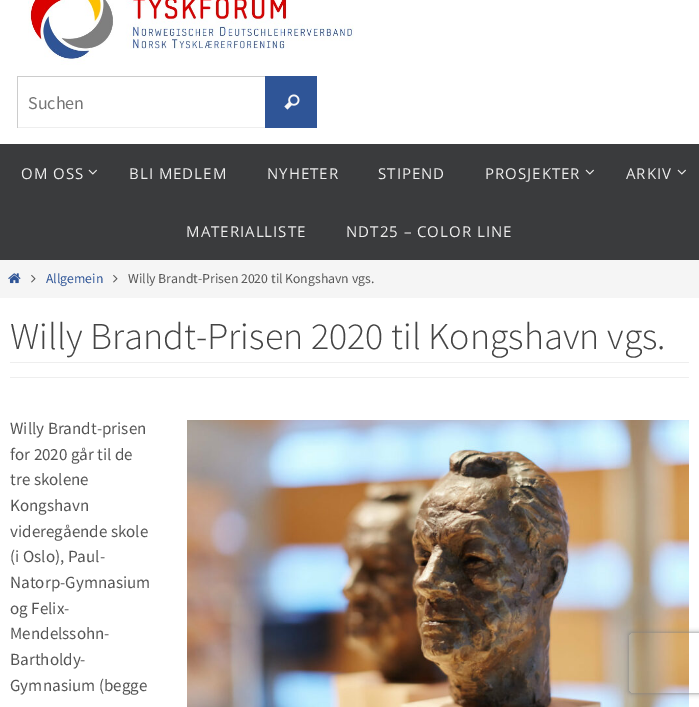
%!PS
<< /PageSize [699 707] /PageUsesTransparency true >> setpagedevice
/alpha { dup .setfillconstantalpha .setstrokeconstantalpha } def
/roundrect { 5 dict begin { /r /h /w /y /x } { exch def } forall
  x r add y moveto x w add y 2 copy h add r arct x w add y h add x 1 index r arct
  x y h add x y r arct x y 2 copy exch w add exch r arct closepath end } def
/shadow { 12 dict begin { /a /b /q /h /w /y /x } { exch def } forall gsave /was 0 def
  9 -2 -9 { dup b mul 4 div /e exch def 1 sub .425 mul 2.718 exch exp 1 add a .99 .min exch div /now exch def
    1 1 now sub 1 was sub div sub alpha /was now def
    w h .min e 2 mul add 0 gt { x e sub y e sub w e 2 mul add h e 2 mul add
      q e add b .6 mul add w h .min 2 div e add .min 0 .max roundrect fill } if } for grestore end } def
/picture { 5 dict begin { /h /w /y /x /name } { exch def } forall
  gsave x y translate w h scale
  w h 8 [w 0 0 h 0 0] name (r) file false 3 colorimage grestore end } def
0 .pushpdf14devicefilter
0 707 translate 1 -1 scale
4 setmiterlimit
1 setgray
0 0 699 707 rectfill
(img1.rgb) 28 0 326 65 picture
0.184 0.333 0.592 setrgbcolor
265 76 52 52 rectfill
0.8 setgray
17 76 248 1 rectfill
0.933 setgray
17 127 248 1 rectfill
0.8 setgray
17 76 1 52 rectfill
/SourceSansPro-Regular [18 0 0 -18 0 0] selectfont
0.459 setgray
28 109 moveto (Suchen) show
(img2.rgb) 284 94 16 16 picture
0.227 0.231 0.239 setrgbcolor
0 144 699 116 rectfill
/OpenSans-Regular [15 0 0 -15 0 0] selectfont
0.933 setgray
21 179 moveto 1 0 (OM OSS) ashow
(img3.rgb) 88 169 9 6 picture
129 179 moveto 1 0 (BLI MEDLEM) ashow
267 179 moveto 1 0 (NYHETER) ashow
378 179 moveto 1 0 (STIPEND) ashow
485 179 moveto 1 0 (PROSJEKTER) ashow
(img3.rgb) 585 169 9 6 picture
626 179 moveto 1 0 (ARKIV) ashow
(img3.rgb) 677 169 9 6 picture
186 237 moveto 1 0 (MATERIALLISTE) ashow
346 237 moveto 1 0 (NDT25 – COLOR LINE) ashow
0.961 setgray
0 260 699 38 rectfill
(img4.rgb) 8 273 13 11 picture
(img5.rgb) 31 274 5 9 picture
/SourceSansPro-Regular [13.7 0 0 -13.7 0 0] selectfont
0.184 0.333 0.592 setrgbcolor
46 283 moveto (Allgemein) show
(img5.rgb) 113 274 5 9 picture
0.333 setgray
128 283 moveto (Willy Brandt-Prisen 2020 til Kongshavn vgs.) show
/SourceSansPro-Light [38 0 0 -38 0 0] selectfont
0.267 setgray
10 349 moveto (Willy Brandt-Prisen 2020 til Kongshavn vgs.) show
0.933 setgray
10 362 679 1 rectfill
10 377 679 1 rectfill
/SourceSansPro-Regular [17 0 0 -17 0 0] selectfont
0.333 setgray
10 434 moveto (Willy Brandt-prisen) show
(img6.rgb) 187 420 502 287 picture
10 460 moveto (for 2020 går til de) show
10 485 moveto (tre skolene) show
10 511 moveto (Kongshavn) show
10 537 moveto (videregående skole) show
10 562 moveto (\(i Oslo\), Paul-) show
10 588 moveto (Natorp-Gymnasium) show
10 614 moveto (og Felix-) show
10 639 moveto (Mendelssohn-) show
10 665 moveto (Bartholdy-) show
10 691 moveto (Gymnasium \(begge) show
gsave
newpath 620 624 moveto 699 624 lineto 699 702 lineto 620 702 lineto closepath 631 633 moveto 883 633 lineto 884 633 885 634 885 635 curveto 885 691 lineto 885 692 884 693 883 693 curveto 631 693 lineto 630 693 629 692 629 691 curveto 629 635 lineto 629 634 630 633 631 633 curveto closepath eoclip newpath
0.502 setgray
629 633 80 60 2 2.5 1 shadow
grestore
.poppdf14devicefilter showpage
